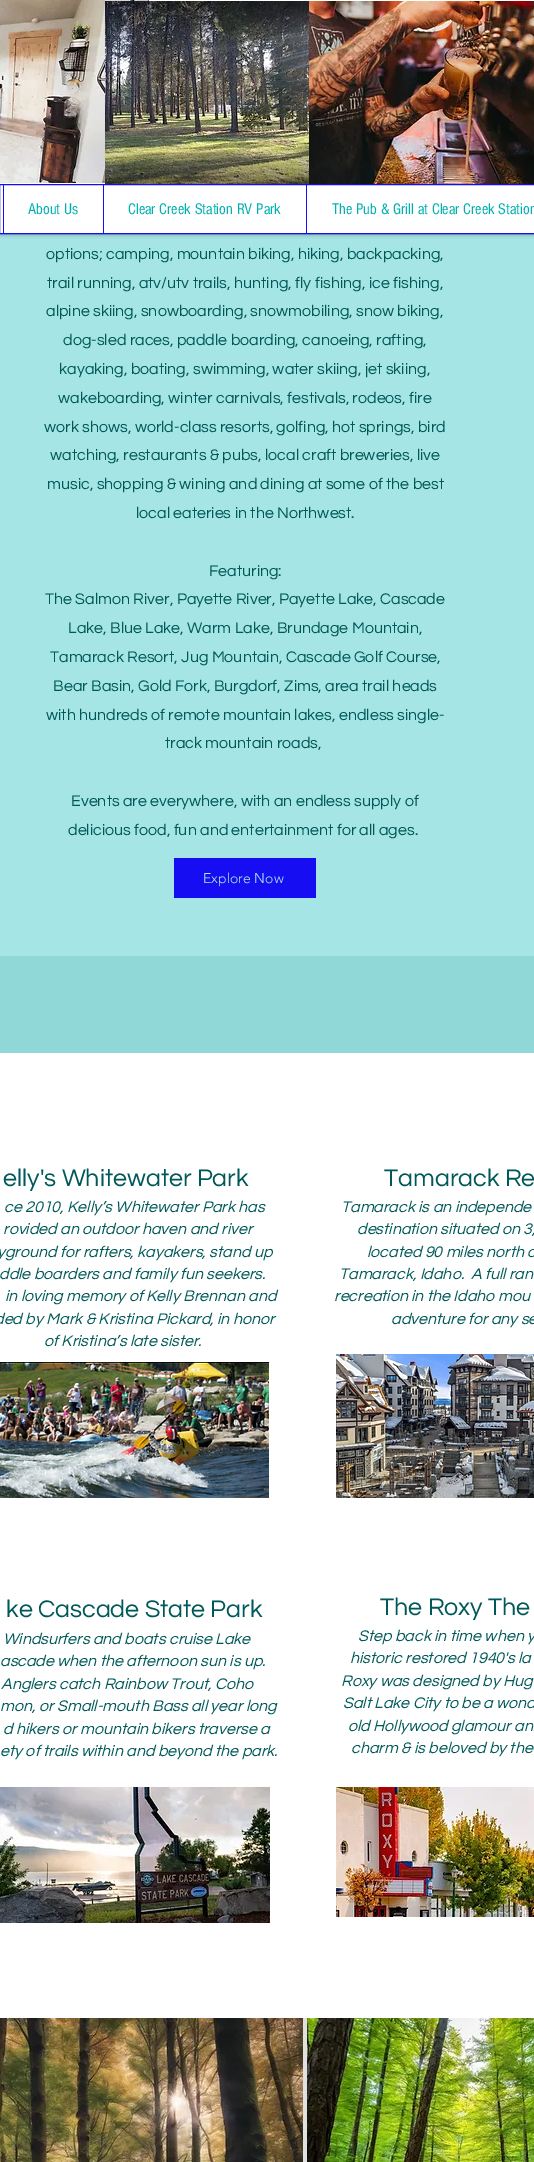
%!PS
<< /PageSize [534 2162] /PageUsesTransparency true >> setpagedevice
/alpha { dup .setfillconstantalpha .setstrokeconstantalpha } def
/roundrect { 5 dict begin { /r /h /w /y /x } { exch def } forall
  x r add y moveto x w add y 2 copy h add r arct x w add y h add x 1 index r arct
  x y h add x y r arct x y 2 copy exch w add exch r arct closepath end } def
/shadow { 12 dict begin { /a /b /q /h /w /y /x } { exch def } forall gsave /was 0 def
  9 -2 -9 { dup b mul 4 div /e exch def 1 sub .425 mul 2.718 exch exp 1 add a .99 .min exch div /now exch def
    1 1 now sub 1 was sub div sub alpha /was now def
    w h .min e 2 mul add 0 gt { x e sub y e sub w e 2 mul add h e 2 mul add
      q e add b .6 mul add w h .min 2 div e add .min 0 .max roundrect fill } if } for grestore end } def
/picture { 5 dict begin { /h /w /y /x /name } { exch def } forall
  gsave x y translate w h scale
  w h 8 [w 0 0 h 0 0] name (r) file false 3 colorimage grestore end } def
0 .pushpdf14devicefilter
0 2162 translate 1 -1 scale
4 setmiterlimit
1 setgray
0 0 534 2162 rectfill
0.651 0.898 0.898 setrgbcolor
0 234 534 722 rectfill
0 setgray
0 0 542 233 0 2.5 0.7 shadow
1 setgray
0 0 534 184 rectfill
(img1.rgb) 0 0 149 183 picture
(img2.rgb) 105 1 204 183 picture
(img3.rgb) 309 1 225 183 picture
newpath -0.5 184.5 moveto 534.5 184.5 lineto 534.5 233.5 lineto -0.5 233.5 lineto closepath gsave fill grestore
0.09 0.051 0.949 setrgbcolor
stroke
3 185 1 48 rectfill
/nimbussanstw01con-Regular [16 0 0 -16 0 0] selectfont
0 0.694 0.69 setrgbcolor
28 214 moveto (About Us) show
0.09 0.051 0.949 setrgbcolor
103 185 1 48 rectfill
0 0.694 0.69 setrgbcolor
128 214 moveto (Clear Creek Station RV Park) show
0.09 0.051 0.949 setrgbcolor
306 185 1 48 rectfill
0 0.694 0.69 setrgbcolor
332 214 moveto (The Pub & Grill at Clear Creek Station) show
/Questrial-Regular [16 0 0 -16 0 0] selectfont
0 0.349 0.345 setrgbcolor
46 259 moveto (options; camping, mountain biking, hiking, backpacking,) show
47 288 moveto (trail running, atv/utv trails, hunting, fly fishing, ice fishing,) show
46 316 moveto (alpine skiing, snowboarding, snowmobiling, snow biking,) show
63 345 moveto (dog-sled races, paddle boarding, canoeing, rafting,) show
59 374 moveto (kayaking, boating, swimming, water skiing, jet skiing,) show
58 403 moveto (wakeboarding, winter carnivals, festivals, rodeos, fire) show
44 432 moveto (work shows, world-class resorts, golfing, hot springs, bird) show
50 460 moveto (watching, restaurants & pubs, local craft breweries, live) show
47 489 moveto (music, shopping & wining and dining at some of the best) show
136 518 moveto (local eateries in the Northwest.) show
209 576 moveto (Featuring:) show
45 604 moveto (The Salmon River, Payette River, Payette Lake, Cascade) show
68 633 moveto (Lake, Blue Lake, Warm Lake, Brundage Mountain,) show
50 662 moveto (Tamarack Resort, Jug Mountain, Cascade Golf Course,) show
53 691 moveto (Bear Basin, Gold Fork, Burgdorf, Zims, area trail heads) show
46 720 moveto (with hundreds of remote mountain lakes, endless single-) show
165 748 moveto (track mountain roads,) show
71 806 moveto (Events are everywhere, with an endless supply of) show
68 835 moveto (delicious food, fun and entertainment for all ages.) show
0.09 0.051 0.949 setrgbcolor
174 858 142 40 rectfill
/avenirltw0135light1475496-Light [14 0 0 -14 0 0] selectfont
0.694 0.922 0.922 setrgbcolor
203 883 moveto (Explore Now) show
0.565 0.847 0.847 setrgbcolor
0 956 534 97 rectfill
/Questrial-Regular [25 0 0 -25 0 0] selectfont
0 0.349 0.345 setrgbcolor
3 1186 moveto (elly's Whitewater Park) show
/Questrial-Italic [16 0 0 -16 0 0] selectfont
4 1212 moveto (ce 2010, Kelly’s Whitewater Park has) show
3 1234 moveto (rovided an outdoor haven and river) show
-3 1257 moveto (yground for rafters, kayakers, stand up) show
-1 1279 moveto (ddle boarders and family fun seekers.) show
5 1301 moveto (in loving memory of Kelly Brennan and) show
-6 1324 moveto (ded by Mark & Kristina Pickard, in honor) show
44 1346 moveto (of Kristina’s late sister.) show
(img4.rgb) 0 1362 269 136 picture
/Questrial-Regular [25 0 0 -25 0 0] selectfont
384 1186 moveto (Tamarack Re) show
/Questrial-Italic [16 0 0 -16 0 0] selectfont
341 1212 moveto (Tamarack is an independe) show
357 1234 moveto (destination situated on 3,) show
367 1257 moveto (located 90 miles north o) show
339 1279 moveto (Tamarack, Idaho.  A full ran) show
334 1301 moveto (recreation in the Idaho mou) show
391 1324 moveto (adventure for any se) show
(img5.rgb) 336 1354 198 144 picture
/Questrial-Regular [25 0 0 -25 0 0] selectfont
6 1617 moveto (ke Cascade State Park) show
/Questrial-Italic [16 0 0 -16 0 0] selectfont
3 1644 moveto (Windsurfers and boats cruise Lake) show
0 1666 moveto (ascade when the afternoon sun is up.) show
1 1689 moveto (Anglers catch Rainbow Trout, Coho) show
0 1711 moveto (mon, or Small-mouth Bass all year long) show
3 1734 moveto (d hikers or mountain bikers traverse a) show
0 1756 moveto (ety of trails within and beyond the park.) show
(img6.rgb) 0 1787 270 136 picture
/Questrial-Regular [25 0 0 -25 0 0] selectfont
380 1615 moveto (The Roxy The) show
/Questrial-Italic [16 0 0 -16 0 0] selectfont
358 1641 moveto (Step back in time when y) show
350 1663 moveto (historic restored 1940's la) show
341 1686 moveto (Roxy was designed by Hug) show
343 1708 moveto (Salt Lake City to be a wond) show
348 1731 moveto (old Hollywood glamour an) show
351 1753 moveto (charm & is beloved by the) show
(img7.rgb) 336 1787 198 130 picture
(img8.rgb) 0 2018 303 144 picture
(img9.rgb) 307 2018 227 144 picture
gsave newpath 303 2018 moveto 307 2018 lineto 307 2162 lineto 303 2162 lineto closepath clip newpath
<< /ShadingType 2 /ColorSpace /DeviceRGB /Coords [0 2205 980 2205] /Extend [true true] /Function << /FunctionType 3 /Domain [0 1] /Functions [<< /FunctionType 2 /Domain [0 1] /C0 [0.859 0.859 0.859] /C1 [0.859 0.859 0.859] /N 1 >> << /FunctionType 2 /Domain [0 1] /C0 [0.859 0.859 0.859] /C1 [0.922 0.922 0.922] /N 1 >> << /FunctionType 2 /Domain [0 1] /C0 [0.922 0.922 0.922] /C1 [0.922 0.922 0.922] /N 1 >>] /Bounds [0.14 0.57] /Encode [0 1 0 1 0 1] >> >> shfill grestore
.poppdf14devicefilter showpage
